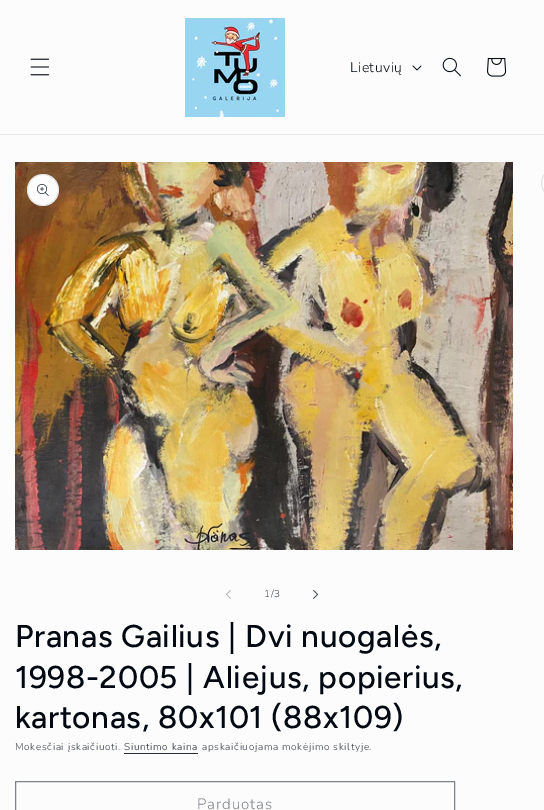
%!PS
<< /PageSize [544 810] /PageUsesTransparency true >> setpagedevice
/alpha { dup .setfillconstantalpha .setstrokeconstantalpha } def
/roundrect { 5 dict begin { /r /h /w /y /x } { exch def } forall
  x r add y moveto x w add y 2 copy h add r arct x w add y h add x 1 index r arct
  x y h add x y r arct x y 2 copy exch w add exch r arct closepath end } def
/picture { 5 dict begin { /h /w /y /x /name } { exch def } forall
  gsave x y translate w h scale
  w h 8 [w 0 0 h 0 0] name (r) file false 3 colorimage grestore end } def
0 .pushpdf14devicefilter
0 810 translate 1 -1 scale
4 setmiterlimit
0.988 setgray
0 0 544 810 rectfill
0.91 0.914 0.914 setrgbcolor
0 134 544 1 rectfill
(img1.rgb) 30 58 20 18 picture
(img2.rgb) 185 18 100 99 picture
/Nunito-Light [14 0 0 -14 0 0] selectfont
0.008 0.035 0.071 setrgbcolor
350 72 moveto 0.5 0 (Lietuvių) ashow
(img3.rgb) 412 65 10 6 picture
(img4.rgb) 442 57 19 20 picture
(img5.rgb) 487 58 20 19 picture
(img6.rgb) 15 162 498 388 picture
0.988 setgray
newpath 43 190 16 0 360 arc closepath fill
0.1 alpha
0.008 0.035 0.071 setrgbcolor
newpath 43 190 15.5 0 360 arc closepath stroke
1 alpha
(img7.rgb) 37 184 12 12 picture
0.89 0.894 0.898 setrgbcolor
541.5 167.5 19 31 15.5 roundrect stroke
(img8.rgb) 226 590 5 9 picture
/Nunito-Light [10 0 0 -10 0 0] selectfont
0.255 0.275 0.302 setrgbcolor
264 597 moveto 0.7 0 (1/3) ashow
(img9.rgb) 313 590 5 9 picture
/Figtree-Medium [31.5 0 0 -31.5 0 0] selectfont
0.008 0.035 0.071 setrgbcolor
15 647 moveto 0.6 0 (Pranas Gailius | Dvi nuogalės,) ashow
15 688 moveto 0.6 0 (1998-2005 | Aliejus, popierius,) ashow
15 728 moveto 0.6 0 (kartonas, 80x101 \(88x109\)) ashow
/Nunito-Light [10 0 0 -10 0 0] selectfont
0.255 0.275 0.302 setrgbcolor
15 750 moveto 0.7 0 (Mokesčiai įskaičiuoti.) ashow
0.157 0.176 0.208 setrgbcolor
124 750 moveto 0.7 0 (Siuntimo kaina) ashow
124 753 74 1 rectfill
0.255 0.275 0.302 setrgbcolor
202 750 moveto 0.7 0 (apskaičiuojama mokėjimo skiltyje.) ashow
0.498 0.514 0.529 setrgbcolor
15.5 781.5 439 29 rectstroke
/Nunito-Light [15 0 0 -15 0 0] selectfont
197 809 moveto 1 0 (Parduotas) ashow
.poppdf14devicefilter showpage
